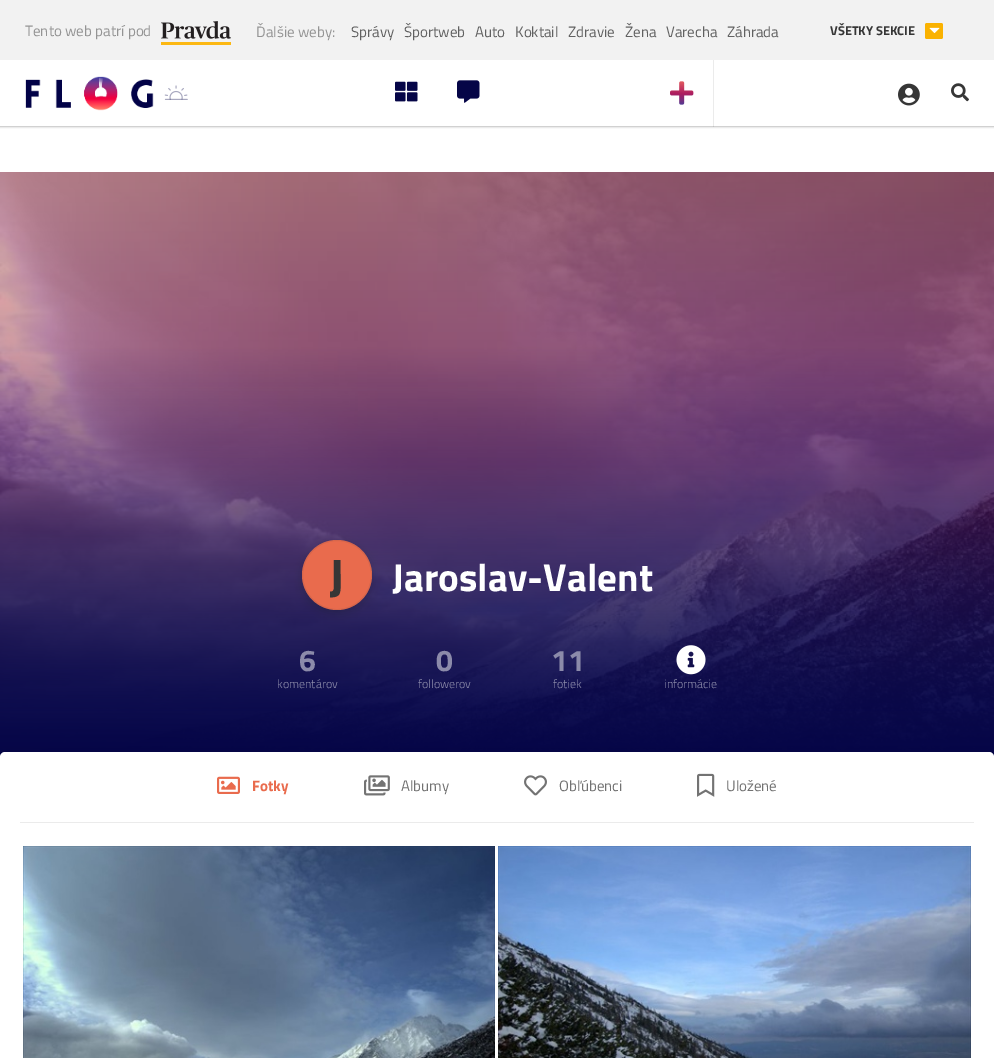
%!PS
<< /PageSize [994 1058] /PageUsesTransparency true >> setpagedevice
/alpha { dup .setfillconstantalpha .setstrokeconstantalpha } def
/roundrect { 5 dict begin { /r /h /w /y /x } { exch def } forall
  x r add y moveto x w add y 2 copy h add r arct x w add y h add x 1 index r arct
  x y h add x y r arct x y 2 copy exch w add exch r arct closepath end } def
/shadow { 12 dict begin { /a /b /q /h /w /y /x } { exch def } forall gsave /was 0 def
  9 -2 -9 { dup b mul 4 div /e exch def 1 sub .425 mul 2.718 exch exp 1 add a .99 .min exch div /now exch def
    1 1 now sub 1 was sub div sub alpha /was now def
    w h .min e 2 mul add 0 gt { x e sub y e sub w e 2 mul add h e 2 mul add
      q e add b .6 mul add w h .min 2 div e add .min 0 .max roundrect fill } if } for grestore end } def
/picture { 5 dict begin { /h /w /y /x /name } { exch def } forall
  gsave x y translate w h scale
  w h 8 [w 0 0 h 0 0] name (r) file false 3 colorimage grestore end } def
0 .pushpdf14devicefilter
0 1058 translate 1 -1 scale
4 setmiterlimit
1 setgray
0 0 994 1058 rectfill
0.843 setgray
0 126 994 1 rectfill
0.949 setgray
0 0 994 60 rectfill
/TitilliumWeb-Regular [15 0 0 -15 0 0] selectfont
0.58 setgray
25 36 moveto (Tento web patrí pod) show
(img1.rgb) 161 21 70 24 picture
256 37 moveto (Ďalšie weby:) show
0.38 setgray
351 37 moveto (Správy) show
404 37 moveto (Športweb) show
475 37 moveto (Auto) show
515 37 moveto (Koktail) show
568 37 moveto (Zdravie) show
625 37 moveto (Žena) show
666 37 moveto (Varecha) show
727 37 moveto (Záhrada) show
/TitilliumWeb-Bold [12.75 0 0 -12.75 0 0] selectfont
0.212 setgray
830 35 moveto (VŠETKY SEKCIE) show
0.98 0.698 0.004 setrgbcolor
925 23 18 16 2 roundrect fill
(img2.rgb) 929 27 11 7 picture
(img3.rgb) 25 76 129 35 picture
(img5.rgb) 99 81 3 7 picture
(img4.rgb) 99 77 4 11 picture
(img6.rgb) 164 85 24 15 picture
(img7.rgb) 395 81 23 21 picture
(img8.rgb) 457 80 23 23 picture
0.922 setgray
713 60 1 67 rectfill
0.78 setgray
713 126 1 1 rectfill
(img9.rgb) 670 81 24 24 picture
(img10.rgb) 898 83 22 23 picture
(img11.rgb) 951 83 18 19 picture
0 setgray
-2 127 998 1 0 0.5 0.1 shadow
(img12.rgb) 0 172 994 580 picture
0.09 0.09 0.086 setrgbcolor
301 542 72 72 36 4.5 0.18 shadow
0.914 0.42 0.302 setrgbcolor
newpath 337 575 35 0 360 arc closepath fill
0.1 alpha
0.212 setgray
newpath 337 575 34.5 0 360 arc closepath stroke
/TitilliumWeb-Bold [50 0 0 -50 0 0] selectfont
1 alpha
329 594 moveto (J) show
/TitilliumWeb-Bold [39 0 0 -39 0 0] selectfont
1 setgray
392 591 moveto (Jaroslav-Valent) show
/TitilliumWeb-Bold [30 0 0 -30 0 0] selectfont
0.549 0.545 0.667 setrgbcolor
299 671 moveto (6) show
/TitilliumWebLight-Light [12 0 0 -12 0 0] selectfont
277 688 moveto (komentárov) show
/TitilliumWeb-Bold [30 0 0 -30 0 0] selectfont
436 671 moveto (0) show
/TitilliumWebLight-Light [12 0 0 -12 0 0] selectfont
418 688 moveto (followerov) show
/TitilliumWeb-Bold [30 0 0 -30 0 0] selectfont
551 671 moveto (11) show
/TitilliumWebLight-Light [12 0 0 -12 0 0] selectfont
553 688 moveto (fotiek) show
(img13.rgb) 676 645 30 30 picture
664 688 moveto (informácie) show
0.02 0.02 0.278 setrgbcolor
0 752 994 5 rectfill
0.09 0.09 0.086 setrgbcolor
-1 754 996 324 6 4.5 0.18 shadow
1 setgray
0 752 994 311 5 roundrect fill
0.922 setgray
20 822 954 1 rectfill
(img14.rgb) 217 776 23 18 picture
/TitilliumWeb-Bold [15 0 0 -15 0 0] selectfont
0.914 0.42 0.302 setrgbcolor
252 791 moveto (Fotky) show
(img15.rgb) 364 775 26 21 picture
/TitilliumWeb-Regular [15 0 0 -15 0 0] selectfont
0.447 setgray
401 791 moveto (Albumy) show
(img16.rgb) 524 775 23 21 picture
559 791 moveto (Obľúbenci) show
(img17.rgb) 697 773 18 24 picture
726 791 moveto (Uložené) show
(img18.rgb) 23 846 472 212 picture
(img19.rgb) 498 846 473 212 picture
.poppdf14devicefilter showpage
